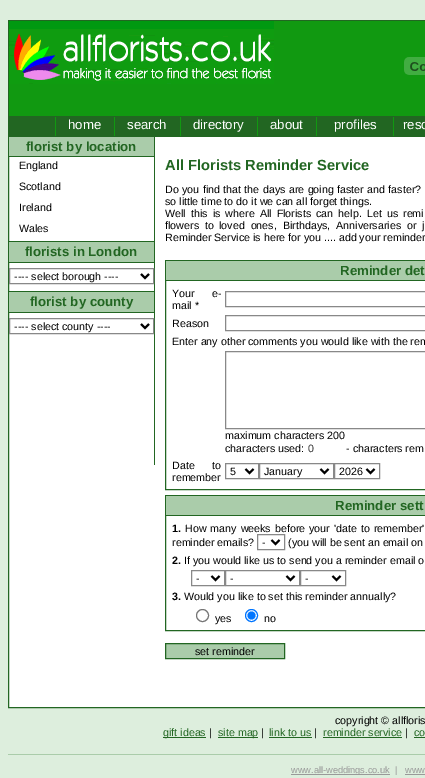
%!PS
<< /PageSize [425 778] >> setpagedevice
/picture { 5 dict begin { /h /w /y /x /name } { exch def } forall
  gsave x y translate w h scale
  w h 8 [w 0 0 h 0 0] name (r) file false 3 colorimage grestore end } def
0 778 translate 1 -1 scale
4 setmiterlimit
0.867 0.933 0.867 setrgbcolor
0 0 425 778 rectfill
1 setgray
9 137 416 570 rectfill
0.133 0.4 0.133 setrgbcolor
8.5 20.5 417 687 rectstroke
0.067 0.6 0.067 setrgbcolor
9 21 416 95 rectfill
(img1.rgb) 9 21 265 63 picture
(img2.rgb) 404 57 21 18 picture
0.133 0.4 0.133 setrgbcolor
9 116 416 21 rectfill
0.067 0.6 0.067 setrgbcolor
55 117 1 19 rectfill
/LiberationSans-Regular [13.25 0 0 -13.25 0 0] selectfont
1 setgray
68 129 moveto (home) show
0.067 0.6 0.067 setrgbcolor
114 117 1 19 rectfill
1 setgray
127 129 moveto (search) show
0.067 0.6 0.067 setrgbcolor
180 117 1 19 rectfill
1 setgray
193 129 moveto (directory) show
0.067 0.6 0.067 setrgbcolor
257 117 1 19 rectfill
1 setgray
270 129 moveto (about) show
0.067 0.6 0.067 setrgbcolor
316 117 1 19 rectfill
1 setgray
334 129 moveto (profiles) show
0.067 0.6 0.067 setrgbcolor
393 117 1 19 rectfill
1 setgray
403 129 moveto (reso) show
0.133 0.4 0.133 setrgbcolor
154 137 1 328 rectfill
0.667 0.8 0.667 setrgbcolor
9 137 145 19 rectfill
0.133 0.4 0.133 setrgbcolor
9 156 145 1 rectfill
/LiberationSans-Bold [13.25 0 0 -13.25 0 0] selectfont
26 151 moveto (florist by location) show
/LiberationSans-Regular [10.7 0 0 -10.7 0 0] selectfont
0 setgray
19 169 moveto (England) show
19 190 moveto (Scotland) show
19 211 moveto (Ireland) show
19 232 moveto (Wales) show
0.667 0.8 0.667 setrgbcolor
9 242 145 20 rectfill
0.133 0.4 0.133 setrgbcolor
9 241 145 1 rectfill
9 262 145 1 rectfill
/LiberationSans-Bold [13.25 0 0 -13.25 0 0] selectfont
25 256 moveto (florists in London) show
0.533 setgray
9.5 268.5 144 15 rectstroke
0 setgray
2 setlinewidth
newpath 141 274 moveto 145 278 lineto 149 274 lineto stroke
/LiberationSans-Regular [10.7 0 0 -10.7 0 0] selectfont
14 280 moveto (---- select borough ----) show
0.667 0.8 0.667 setrgbcolor
9 292 145 20 rectfill
0.133 0.4 0.133 setrgbcolor
9 291 145 1 rectfill
9 312 145 1 rectfill
/LiberationSans-Bold [13.25 0 0 -13.25 0 0] selectfont
30 306 moveto (florist by county) show
0.533 setgray
1 setlinewidth
9.5 318.5 144 15 rectstroke
0 setgray
2 setlinewidth
newpath 141 324 moveto 145 328 lineto 149 324 lineto stroke
/LiberationSans-Regular [10.7 0 0 -10.7 0 0] selectfont
14 330 moveto (---- select county ----) show
/LiberationSans-Bold [14.7 0 0 -14.7 0 0] selectfont
0.133 0.4 0.133 setrgbcolor
165 170 moveto (All Florists Reminder Service) show
/LiberationSans-Regular [10.7 0 0 -10.7 0 0] selectfont
0 setgray
165 193 moveto 0.4 0 32 (Do you find that the days are going faster and faster?) widthshow
165 205 moveto (so little time to do it we can all forget things.) show
165 217 moveto 2.1 0 32 (Well this is where All Florists can help. Let us remi) widthshow
165 229 moveto 3 0 32 (flowers to) widthshow
219 229 moveto 3 0 32 (loved ones, Birthdays, Anniversaries or j) widthshow
165 241 moveto (Reminder Service is here for you .... add your reminder) show
0.133 0.4 0.133 setrgbcolor
1 setlinewidth
165.5 260.5 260 229 rectstroke
0.667 0.8 0.667 setrgbcolor
166 261 259 19 rectfill
0.133 0.4 0.133 setrgbcolor
166 280 259 1 rectfill
/LiberationSans-Bold [13.25 0 0 -13.25 0 0] selectfont
340 275 moveto (Reminder det) show
/LiberationSans-Regular [10.7 0 0 -10.7 0 0] selectfont
0 setgray
172 297 moveto 14 0 32 (Your e-) widthshow
172 309 moveto (mail *) show
0.533 setgray
225.5 291.5 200 15 rectstroke
0 setgray
172 327 moveto (Reason) show
0.533 setgray
225.5 315.5 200 15 rectstroke
0 setgray
172 345 moveto (Enter any other comments you would like with the rem) show
0.533 setgray
225.5 351.5 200 77 rectstroke
0 setgray
225 439 moveto (maximum characters 200) show
225 452 moveto (characters used:) show
0.2 setgray
308 452 moveto (0) show
0 setgray
346 452 moveto (- characters rem) show
172 469 moveto 14 0 32 (Date to) widthshow
172 481 moveto (remember) show
0.533 setgray
225.5 463.5 33 15 rectstroke
0 setgray
2 setlinewidth
newpath 245.5 469 moveto 249.5 473 lineto 253.5 469 lineto stroke
230 475 moveto (5) show
0.533 setgray
1 setlinewidth
259.5 463.5 74 15 rectstroke
0 setgray
2 setlinewidth
newpath 320.5 469 moveto 324.5 473 lineto 328.5 469 lineto stroke
264 475 moveto (January) show
0.533 setgray
1 setlinewidth
334.5 463.5 45 15 rectstroke
0 setgray
2 setlinewidth
newpath 366.5 469 moveto 370.5 473 lineto 374.5 469 lineto stroke
339 475 moveto (2026) show
0.133 0.4 0.133 setrgbcolor
1 setlinewidth
165.5 495.5 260 135 rectstroke
0.667 0.8 0.667 setrgbcolor
166 496 259 19 rectfill
0.133 0.4 0.133 setrgbcolor
166 515 259 1 rectfill
/LiberationSans-Bold [13.25 0 0 -13.25 0 0] selectfont
335 510 moveto (Reminder sett) show
/LiberationSans-Bold [10.7 0 0 -10.7 0 0] selectfont
0 setgray
172 532 moveto (1.) show
/LiberationSans-Regular [10.7 0 0 -10.7 0 0] selectfont
185 532 moveto 1 0 32 (How many weeks before your 'date to remember') widthshow
172 546 moveto (reminder emails?) show
0.533 setgray
257.5 534.5 27 15 rectstroke
0 setgray
2 setlinewidth
newpath 271.5 540 moveto 275.5 544 lineto 279.5 540 lineto stroke
262 546 moveto (-) show
288 546 moveto (\(you will be sent an email on) show
/LiberationSans-Bold [10.7 0 0 -10.7 0 0] selectfont
172 564 moveto (2.) show
/LiberationSans-Regular [10.7 0 0 -10.7 0 0] selectfont
184 564 moveto (If you would like us to send you a reminder email o) show
0.533 setgray
1 setlinewidth
191.5 570.5 33 15 rectstroke
0 setgray
2 setlinewidth
newpath 211.5 576 moveto 215.5 580 lineto 219.5 576 lineto stroke
196 582 moveto (-) show
0.533 setgray
1 setlinewidth
225.5 570.5 74 15 rectstroke
0 setgray
2 setlinewidth
newpath 286.5 576 moveto 290.5 580 lineto 294.5 576 lineto stroke
230 582 moveto (-) show
0.533 setgray
1 setlinewidth
300.5 570.5 45 15 rectstroke
0 setgray
2 setlinewidth
newpath 332.5 576 moveto 336.5 580 lineto 340.5 576 lineto stroke
305 582 moveto (-) show
/LiberationSans-Bold [10.7 0 0 -10.7 0 0] selectfont
172 600 moveto (3.) show
/LiberationSans-Regular [10.7 0 0 -10.7 0 0] selectfont
184 600 moveto (Would you like to set this reminder annually?) show
0.463 setgray
1 setlinewidth
newpath 202.5 615.5 6 0 360 arc closepath stroke
0 setgray
215 622 moveto (yes) show
0 0.459 1 setrgbcolor
newpath 251.5 615.5 6 0 360 arc closepath stroke
newpath 251.5 615.5 4 0 360 arc closepath fill
0 setgray
264 622 moveto (no) show
0.667 0.8 0.667 setrgbcolor
newpath 165.5 643.5 moveto 284.5 643.5 lineto 284.5 658.5 lineto 165.5 658.5 lineto closepath gsave fill grestore
0.133 0.4 0.133 setrgbcolor
stroke
0 setgray
195 655 moveto (set reminder) show
335 724 moveto (copyright © allfloris) show
0.133 0.4 0.133 setrgbcolor
163 737 43 1 rectfill
163 736 moveto (gift ideas) show
0 setgray
209 736 moveto (|) show
0.133 0.4 0.133 setrgbcolor
218 737 40 1 rectfill
218 736 moveto (site map) show
0 setgray
261 736 moveto (|) show
0.133 0.4 0.133 setrgbcolor
269 736 moveto (link to us) show
269 737 43 1 rectfill
0 setgray
314 736 moveto (|) show
0.133 0.4 0.133 setrgbcolor
323 736 moveto (reminder service) show
323 737 79 1 rectfill
0 setgray
405 736 moveto (|) show
0.133 0.4 0.133 setrgbcolor
414 736 moveto (co) show
414 737 11 1 rectfill
0.667 0.8 0.667 setrgbcolor
8 754 417 1 rectfill
0.6 setgray
291 774 99 1 rectfill
/LiberationSans-Regular [9.25 0 0 -9.25 0 0] selectfont
291 773 moveto (www.all-weddings.co.uk) show
395 773 moveto (|) show
405 773 moveto (www) show
405 774 20 1 rectfill
showpage
